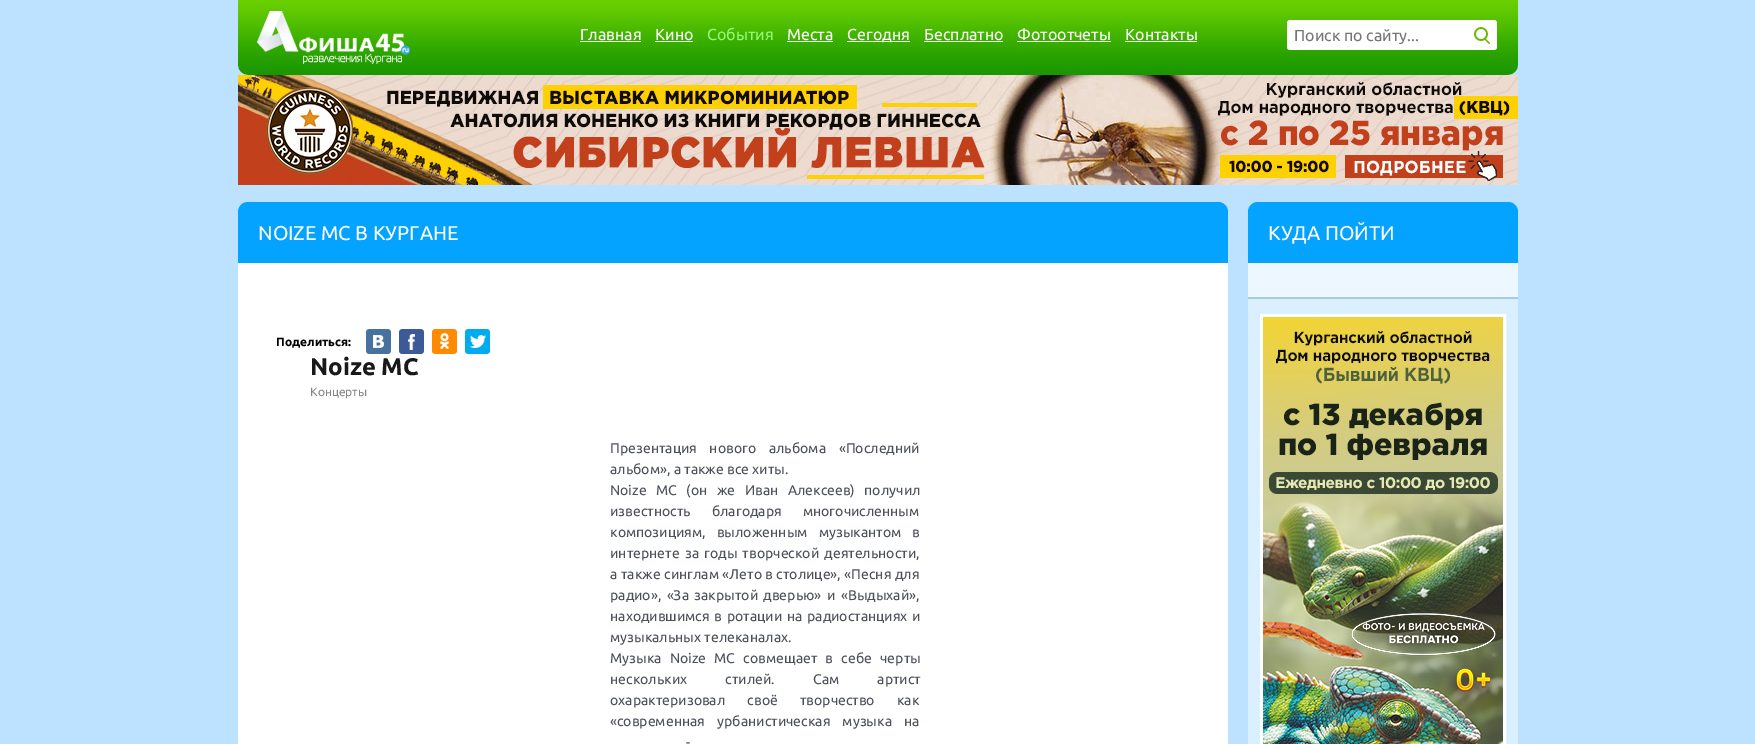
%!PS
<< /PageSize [1755 744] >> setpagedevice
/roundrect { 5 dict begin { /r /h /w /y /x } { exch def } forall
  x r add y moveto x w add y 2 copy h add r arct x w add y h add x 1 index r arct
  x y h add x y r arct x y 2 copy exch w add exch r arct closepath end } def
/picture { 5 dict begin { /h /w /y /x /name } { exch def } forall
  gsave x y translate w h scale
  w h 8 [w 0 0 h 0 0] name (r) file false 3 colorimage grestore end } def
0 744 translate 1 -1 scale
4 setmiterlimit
0.741 0.886 1 setrgbcolor
0 0 1755 744 rectfill
(img1.rgb) 238 0 1280 75 picture
(img2.rgb) 257 11 153 53 picture
/Ubuntu-Regular [16 0 0 -16 0 0] selectfont
1 setgray
580 40 moveto (Главная) show
580 41 61 1 rectfill
655 40 moveto (Кино) show
655 41 38 1 rectfill
0.592 0.976 0.475 setrgbcolor
707 40 moveto (События) show
1 setgray
787 40 moveto (Места) show
787 41 46 1 rectfill
847 41 63 1 rectfill
847 40 moveto (Сегодня) show
924 40 moveto (Бесплатно) show
924 41 79 1 rectfill
1017 40 moveto (Фотоотчеты) show
1017 41 94 1 rectfill
1125 40 moveto (Контакты) show
1125 41 72 1 rectfill
1287 20 210 30 3 roundrect fill
0.459 setgray
1294 41 moveto (Поиск по сайту...) show
(img3.rgb) 1474 27 16 17 picture
(img4.rgb) 238 75 1280 110 picture
0.012 0.639 1 setrgbcolor
newpath 248 202 moveto 1218 202 lineto 1223.5 202 1228 206.5 1228 212 curveto 1228 263 lineto 238 263 lineto 238 212 lineto 238 206.5 242.5 202 248 202 curveto closepath fill
/Ubuntu-Regular [20 0 0 -20 0 0] selectfont
1 setgray
258 240 moveto (NOIZE MC В КУРГАНЕ) show
238 263 990 481 rectfill
/Ubuntu-Bold [12 0 0 -12 0 0] selectfont
0 setgray
276 346 moveto (Поделиться:) show
(img5.rgb) 366 329 25 25 picture
(img6.rgb) 399 329 25 25 picture
(img7.rgb) 432 329 25 25 picture
(img8.rgb) 465 329 25 25 picture
/Ubuntu-Bold [24 0 0 -24 0 0] selectfont
0.098 0.098 0.102 setrgbcolor
310 375 moveto (Noize MC) show
/Ubuntu-Regular [12 0 0 -12 0 0] selectfont
0.522 setgray
310 396 moveto (Концерты) show
/Ubuntu-Regular [14 0 0 -14 0 0] selectfont
0.298 0.318 0.349 setrgbcolor
610 453 moveto 9.5 0 32 (Презентация нового альбома «Последний) widthshow
610 474 moveto (альбом», а также все хиты.) show
610 495 moveto 6.25 0 32 (Noize MC \(он же Иван Алексеев\) получил) widthshow
610 516 moveto 18 0 32 (известность благодаря многочисленным) widthshow
610 537 moveto 8 0 32 (композициям, выложенным музыкантом в) widthshow
610 558 moveto 2 0 32 (интернете за годы творческой деятельности,) widthshow
610 579 moveto 0.25 0 32 (а также синглам «Лето в столице», «Песня для) widthshow
610 600 moveto 2.25 0 32 (радио», «За закрытой дверью» и «Выдыхай»,) widthshow
610 621 moveto 1.5 0 32 (находившимся в ротации на радиостанциях и) widthshow
610 642 moveto (музыкальных телеканалах.) show
610 663 moveto 5 0 32 (Музыка Noize MC совмещает в себе черты) widthshow
610 684 moveto 35 0 32 (нескольких стилей. Сам артист) widthshow
610 705 moveto 19 0 32 (охарактеризовал своё творчество как) widthshow
610 726 moveto 9 0 32 («современная урбанистическая музыка на) widthshow
686 747 moveto 11 0 32 (-) widthshow
0.012 0.639 1 setrgbcolor
newpath 1258 202 moveto 1508 202 lineto 1513.5 202 1518 206.5 1518 212 curveto 1518 263 lineto 1248 263 lineto 1248 212 lineto 1248 206.5 1252.5 202 1258 202 curveto closepath fill
/Ubuntu-Regular [20 0 0 -20 0 0] selectfont
1 setgray
1268 240 moveto (КУДА ПОЙТИ) show
0.929 0.969 1 setrgbcolor
1248 263 270 34 rectfill
0.651 0.796 0.91 setrgbcolor
1248 297 270 2 rectfill
0.855 0.937 1 setrgbcolor
1248 299 270 445 rectfill
1 setgray
3 setlinewidth
1261.5 315.5 243 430 rectstroke
(img9.rgb) 1263 317 240 427 picture
showpage
